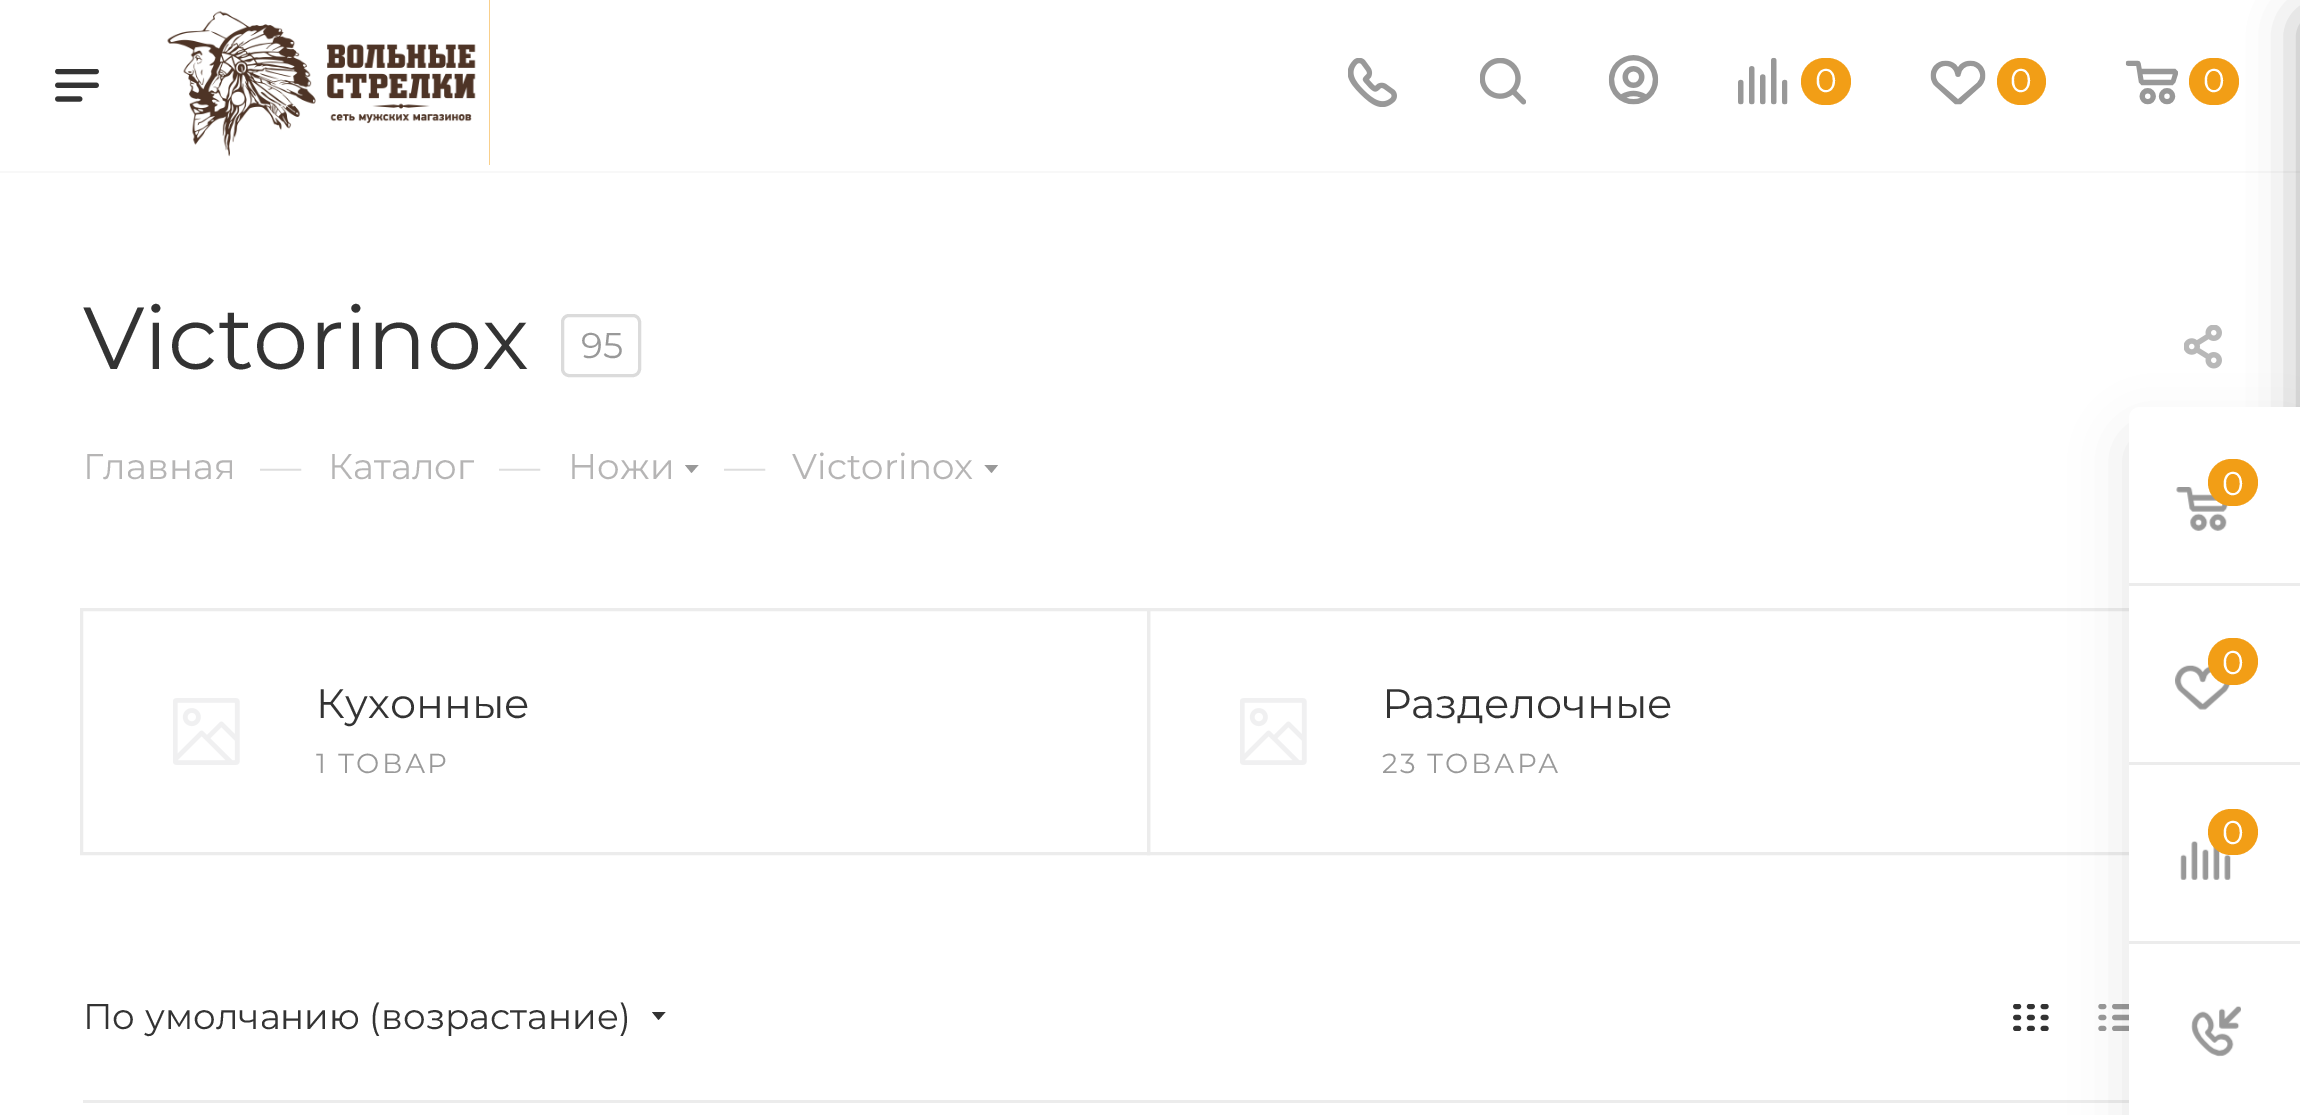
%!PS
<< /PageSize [2300 1115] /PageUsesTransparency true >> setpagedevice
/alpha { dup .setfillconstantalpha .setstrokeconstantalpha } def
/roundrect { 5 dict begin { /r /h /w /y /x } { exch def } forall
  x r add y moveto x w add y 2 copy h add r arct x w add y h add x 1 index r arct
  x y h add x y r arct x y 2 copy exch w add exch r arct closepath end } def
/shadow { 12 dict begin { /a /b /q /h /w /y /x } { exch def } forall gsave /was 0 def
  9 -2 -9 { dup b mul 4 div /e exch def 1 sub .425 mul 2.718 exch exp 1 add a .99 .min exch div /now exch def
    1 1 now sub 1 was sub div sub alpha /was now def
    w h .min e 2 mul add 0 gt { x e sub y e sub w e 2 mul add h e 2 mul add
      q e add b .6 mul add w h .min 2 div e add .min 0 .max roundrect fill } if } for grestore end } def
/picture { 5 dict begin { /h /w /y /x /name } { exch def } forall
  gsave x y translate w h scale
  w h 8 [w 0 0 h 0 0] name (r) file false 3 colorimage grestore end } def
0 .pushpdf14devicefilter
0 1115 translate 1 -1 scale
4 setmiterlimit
1 setgray
0 0 2300 1115 rectfill
0.973 setgray
0 171 2300 2 rectfill
(img1.rgb) 55 69 44 33 picture
0.949 0.62 0.086 setrgbcolor
489 0 1 165 rectfill
(img2.rgb) 160 0 330 165 picture
(img3.rgb) 1348 58 49 49 picture
(img4.rgb) 1480 58 46 47 picture
(img5.rgb) 1608 55 51 50 picture
(img6.rgb) 1738 57 50 48 picture
1801 58 50 47 23.5 roundrect fill
/Montserrat-Regular [33 0 0 -33 0 0] selectfont
1 setgray
1815 92 moveto (0) show
(img7.rgb) 1930 60 56 45 picture
0.949 0.62 0.086 setrgbcolor
1997 58 49 47 23.5 roundrect fill
1 setgray
2010 92 moveto (0) show
(img8.rgb) 2125 60 53 45 picture
0.949 0.62 0.086 setrgbcolor
2189 58 50 47 23.5 roundrect fill
1 setgray
2203 92 moveto (0) show
/Montserrat-Regular [88 0 0 -88 0 0] selectfont
0.2 setgray
83 369 moveto (Victorinox) show
0.859 setgray
3 setlinewidth
562.5 315.5 77 60 6.5 roundrect stroke
/Montserrat-Regular [35.75 0 0 -35.75 0 0] selectfont
0.6 setgray
581 358 moveto (95) show
(img9.rgb) 2184 325 38 44 picture
0.714 0.71 0.71 setrgbcolor
83 479 moveto (Главная) show
/Montserrat-Regular [41.25 0 0 -41.25 0 0] selectfont
0.867 setgray
260 481 moveto (—) show
/Montserrat-Regular [35.75 0 0 -35.75 0 0] selectfont
0.714 0.71 0.71 setrgbcolor
328 479 moveto (Каталог) show
/Montserrat-Regular [41.25 0 0 -41.25 0 0] selectfont
0.867 setgray
499 481 moveto (—) show
/Montserrat-Regular [35.75 0 0 -35.75 0 0] selectfont
0.714 0.71 0.71 setrgbcolor
568 479 moveto (Ножи) show
0.6 setgray
newpath 685 465 moveto 698.5 465 lineto 691.5 473 lineto closepath eofill
/Montserrat-Regular [41.25 0 0 -41.25 0 0] selectfont
0.867 setgray
724 481 moveto (—) show
/Montserrat-Regular [35.75 0 0 -35.75 0 0] selectfont
0.714 0.71 0.71 setrgbcolor
792 479 moveto (Victorinox) show
0.6 setgray
newpath 984.5 465 moveto 998 465 lineto 991.5 473 lineto closepath eofill
0.925 setgray
81.5 609.5 1067 244 rectstroke
(img10.rgb) 173 698 67 67 picture
/Montserrat-Regular [41.25 0 0 -41.25 0 0] selectfont
0.2 setgray
316 718 moveto (Кухонные) show
/Montserrat-Regular [27.5 0 0 -27.5 0 0] selectfont
0.6 setgray
316 773 moveto 2.25 0 (1 ТОВАР) ashow
0.925 setgray
1148.5 609.5 1064 244 rectstroke
(img10.rgb) 1240 698 67 67 picture
/Montserrat-Regular [41.25 0 0 -41.25 0 0] selectfont
0.2 setgray
1382 718 moveto (Разделочные) show
/Montserrat-Regular [27.5 0 0 -27.5 0 0] selectfont
0.6 setgray
1382 773 moveto 2.25 0 (23 ТОВАРА) ashow
0.925 setgray
83 1100 2046 3 rectfill
/Montserrat-Regular [35.75 0 0 -35.75 0 0] selectfont
0.2 setgray
83 1029 moveto (По умолчанию \(возрастание\)) show
newpath 652 1012 moveto 665.5 1012 lineto 658.5 1020 lineto closepath eofill
(img11.rgb) 2013 1004 36 27 picture
(img12.rgb) 2098 1004 31 27 picture
0.173 setgray
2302 17 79 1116 6 25 0.4 shadow
0 setgray
2129 435 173 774 11 27.5 0.1 shadow
1 setgray
newpath 2140 407 moveto 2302 407 lineto 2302 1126 lineto 2140 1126 lineto 2134 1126 2129 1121 2129 1115 curveto 2129 418 lineto 2129 412 2134 407 2140 407 curveto closepath fill
0.925 setgray
2129 583 171 3 rectfill
(img13.rgb) 2176 487 52 44 picture
0.949 0.62 0.086 setrgbcolor
2208 459 50 47 23.5 roundrect fill
/Montserrat-Regular [33 0 0 -33 0 0] selectfont
1 setgray
2222 495 moveto (0) show
0.925 setgray
2129 762 171 3 rectfill
(img14.rgb) 2175 665 56 45 picture
0.949 0.62 0.086 setrgbcolor
2208 638 50 47 23.5 roundrect fill
1 setgray
2222 674 moveto (0) show
0.925 setgray
2129 941 171 3 rectfill
(img15.rgb) 2180 841 51 39 picture
0.949 0.62 0.086 setrgbcolor
2208 809 50 46 23 roundrect fill
1 setgray
2222 844 moveto (0) show
(img16.rgb) 2191 1006 50 51 picture
.poppdf14devicefilter showpage
